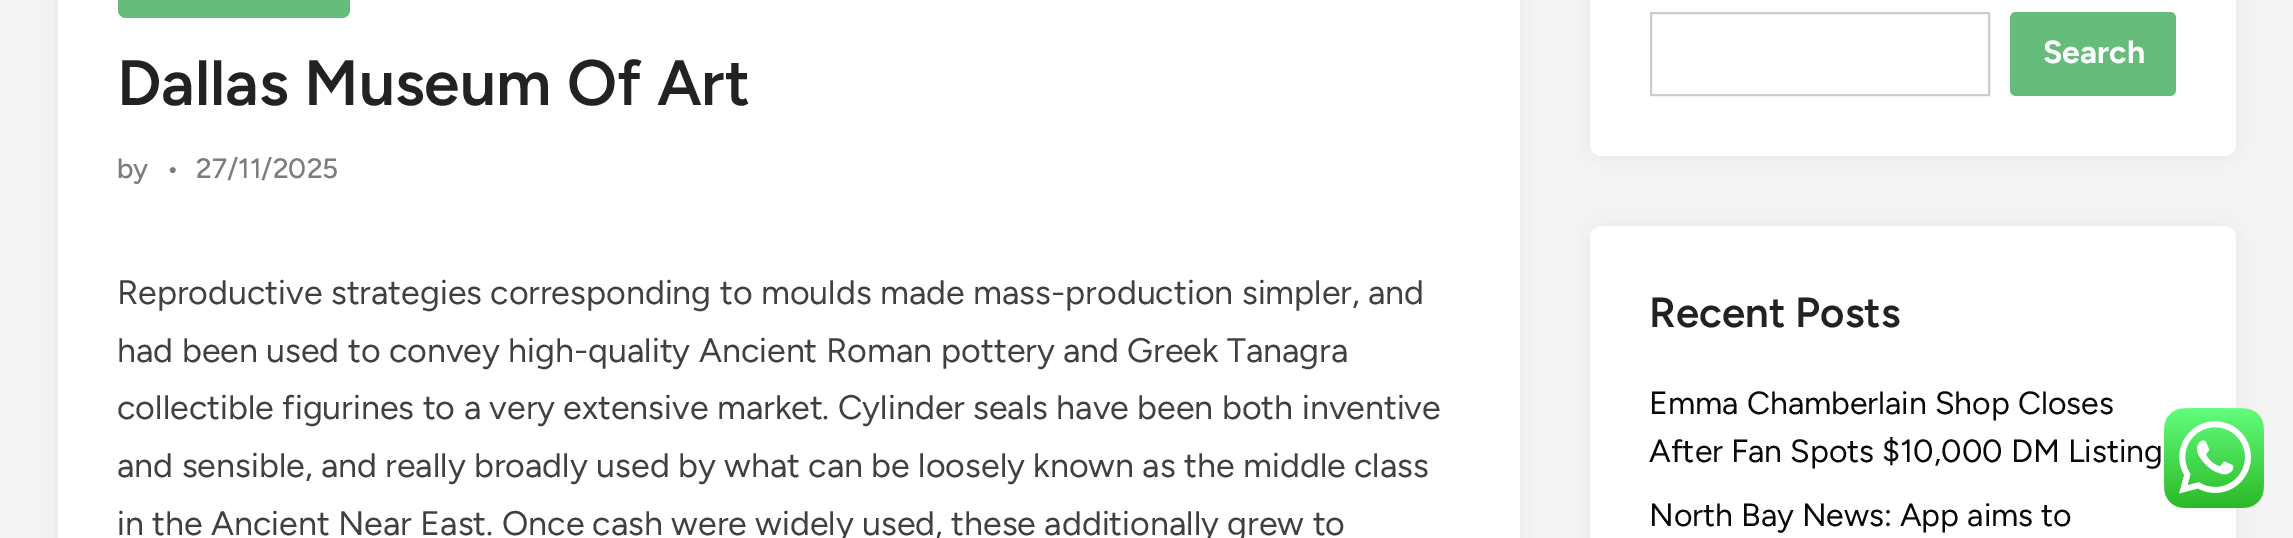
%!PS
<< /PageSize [2293 538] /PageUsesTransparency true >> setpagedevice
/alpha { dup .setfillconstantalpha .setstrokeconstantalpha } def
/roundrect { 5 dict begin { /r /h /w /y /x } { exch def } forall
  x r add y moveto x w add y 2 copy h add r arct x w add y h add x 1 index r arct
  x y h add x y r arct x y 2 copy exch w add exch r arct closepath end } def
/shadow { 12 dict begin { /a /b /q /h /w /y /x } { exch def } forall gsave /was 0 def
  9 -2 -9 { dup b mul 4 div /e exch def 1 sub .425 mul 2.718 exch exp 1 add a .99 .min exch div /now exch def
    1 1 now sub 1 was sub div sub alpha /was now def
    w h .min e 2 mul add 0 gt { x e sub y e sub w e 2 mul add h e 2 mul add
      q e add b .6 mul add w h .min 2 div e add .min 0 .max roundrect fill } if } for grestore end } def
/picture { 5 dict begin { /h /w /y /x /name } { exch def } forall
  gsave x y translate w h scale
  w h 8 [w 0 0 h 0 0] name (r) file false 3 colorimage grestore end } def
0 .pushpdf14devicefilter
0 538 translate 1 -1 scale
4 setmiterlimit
0.961 setgray
0 0 2293 538 rectfill
0 setgray
58 -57 1462 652 12 15 0.06 shadow
1 setgray
58 0 1462 538 rectfill
0.396 0.737 0.482 setrgbcolor
118 -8 232 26 8 roundrect fill
/Figtree-SemiBold [64 0 0 -64 0 0] selectfont
0.133 setgray
117 105 moveto (Dallas Museum Of Art) show
/Figtree-Medium [28 0 0 -28 0 0] selectfont
0.49 setgray
117 178 moveto (by) show
166 178 moveto (•) show
196 178 moveto (27/11/2025) show
/Figtree-Regular [34 0 0 -34 0 0] selectfont
0.251 setgray
117 304 moveto (Reproductive strategies corresponding to moulds made mass-production simpler, and) show
117 362 moveto (had been used to convey high-quality Ancient Roman) show
941 362 moveto (pottery and Greek Tanagra) show
117 419 moveto (collectible figurines to a very extensive market. Cylinder seals have been both inventive) show
117 477 moveto (and sensible, and really broadly used by what can be loosely known as the middle class) show
117 535 moveto (in the Ancient Near East. Once cash were widely used, these additionally grew to) show
0 setgray
1590 -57 646 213 12 15 0.06 shadow
1 setgray
1590 -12 646 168 12 roundrect fill
0.8 setgray
2 setlinewidth
1651 13 338 82 rectstroke
0.396 0.737 0.482 setrgbcolor
2010 12 166 84 6 roundrect fill
/Figtree-Bold [32 0 0 -32 0 0] selectfont
1 setgray
2043 63 moveto (Search) show
0 setgray
1590 226 646 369 12 15 0.06 shadow
1 setgray
1590 226 646 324 12 roundrect fill
/Figtree-SemiBold [42 0 0 -42 0 0] selectfont
0.133 setgray
1649 327 moveto (Recent Posts) show
/Figtree-Regular [32 0 0 -32 0 0] selectfont
0.039 0.031 0.031 setrgbcolor
1649 414 moveto (Emma Chamberlain Shop Closes) show
1649 462 moveto (After Fan Spots $10,000 DM Listing) show
1649 526 moveto (North Bay News: App aims to) show
(img1.rgb) 2164 408 100 100 picture
.poppdf14devicefilter showpage
